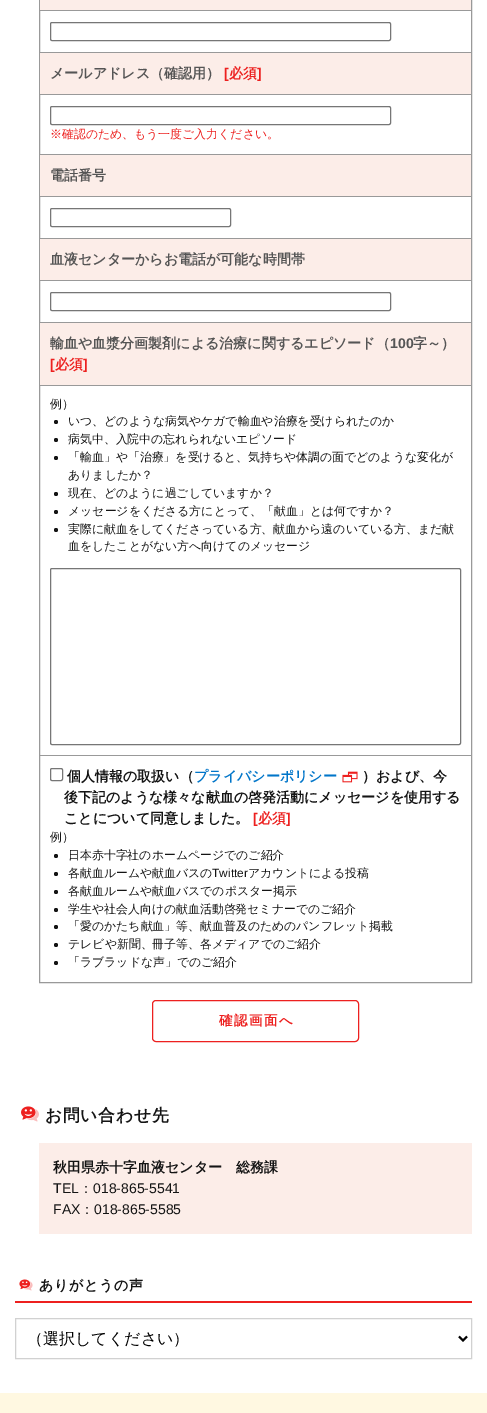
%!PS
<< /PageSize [487 1413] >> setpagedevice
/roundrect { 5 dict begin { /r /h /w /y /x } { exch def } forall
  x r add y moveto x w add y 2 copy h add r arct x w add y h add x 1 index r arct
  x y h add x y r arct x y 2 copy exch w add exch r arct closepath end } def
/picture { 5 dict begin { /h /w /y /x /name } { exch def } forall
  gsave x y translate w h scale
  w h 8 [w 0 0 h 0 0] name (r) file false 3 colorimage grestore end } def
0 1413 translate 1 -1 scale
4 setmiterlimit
1 setgray
0 0 487 1413 rectfill
0.6 setgray
39.5 -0.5 432 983 rectstroke
40 52 431 1 rectfill
0.988 0.929 0.91 setrgbcolor
40 0 431 10 rectfill
0.6 setgray
40 10 431 1 rectfill
0.463 setgray
50.5 22.5 340 18 1.5 roundrect stroke
0.6 setgray
40 154 431 1 rectfill
0.988 0.929 0.91 setrgbcolor
40 53 431 41 rectfill
0.6 setgray
40 94 431 1 rectfill
/WenQuanYiZenHei-Bold [14 0 0 -14 0 0] selectfont
0.333 setgray
50 78 moveto (メールアドレス（確認用）) show
/LiberationSans-Bold [14 0 0 -14 0 0] selectfont
0.929 0.125 0.122 setrgbcolor
224 78 moveto ([) show
/WenQuanYiZenHei-Bold [14 0 0 -14 0 0] selectfont
229 78 moveto (必須) show
/LiberationSans-Bold [14 0 0 -14 0 0] selectfont
257 78 moveto (]) show
0.463 setgray
50.5 106.5 340 18 1.5 roundrect stroke
/WenQuanYiZenHei-Medium [11.9 0 0 -11.9 0 0] selectfont
0.929 0.125 0.122 setrgbcolor
50 138 moveto (※確認のため、もう一度ご入力ください。) show
0.6 setgray
40 238 431 1 rectfill
0.988 0.929 0.91 setrgbcolor
40 155 431 41 rectfill
0.6 setgray
40 196 431 1 rectfill
/WenQuanYiZenHei-Bold [14 0 0 -14 0 0] selectfont
0.333 setgray
50 180 moveto (電話番号) show
0.463 setgray
50.5 208.5 180 18 1.5 roundrect stroke
0.6 setgray
40 322 431 1 rectfill
0.988 0.929 0.91 setrgbcolor
40 239 431 41 rectfill
0.6 setgray
40 280 431 1 rectfill
0.333 setgray
50 264 moveto (血液センターからお電話が可能な時間帯) show
0.463 setgray
50.5 292.5 340 18 1.5 roundrect stroke
0.6 setgray
40 755 431 1 rectfill
0.988 0.929 0.91 setrgbcolor
40 323 431 62 rectfill
0.6 setgray
40 385 431 1 rectfill
0.333 setgray
50 348 moveto (輸血や血漿分画製剤による治療に関するエピソード（) show
/LiberationSans-Bold [14 0 0 -14 0 0] selectfont
390 348 moveto (100) show
/WenQuanYiZenHei-Bold [14 0 0 -14 0 0] selectfont
413 348 moveto (字～）) show
/LiberationSans-Bold [14 0 0 -14 0 0] selectfont
0.929 0.125 0.122 setrgbcolor
50 369 moveto ([) show
/WenQuanYiZenHei-Bold [14 0 0 -14 0 0] selectfont
55 369 moveto (必須) show
/LiberationSans-Bold [14 0 0 -14 0 0] selectfont
83 369 moveto (]) show
/WenQuanYiZenHei-Medium [11.9 0 0 -11.9 0 0] selectfont
0.078 setgray
50 408 moveto (例）) show
newpath 56 422 2 0 360 arc closepath fill
68 425 moveto (いつ、どのような病気やケガで輸血や治療を受けられたのか) show
newpath 56 440 2 0 360 arc closepath fill
68 443 moveto (病気中、入院中の忘れられないエピソード) show
newpath 56 458 2 0 360 arc closepath fill
68 461 moveto (「輸血」や「治療」を受けると、気持ちや体調の面でどのような変化が) show
68 479 moveto (ありましたか？) show
newpath 56 494 2 0 360 arc closepath fill
68 497 moveto (現在、どのように過ごしていますか？) show
newpath 56 512 2 0 360 arc closepath fill
68 515 moveto (メッセージをくださる方にとって、「献血」とは何ですか？) show
newpath 56 530 2 0 360 arc closepath fill
68 533 moveto (実際に献血をしてくださっている方、献血から遠のいている方、まだ献) show
68 550 moveto (血をしたことがない方へ向けてのメッセージ) show
0.463 setgray
50.5 568.5 410 176 1.5 roundrect stroke
50.5 768.5 12 12 1.5 roundrect stroke
/WenQuanYiZenHei-Bold [14 0 0 -14 0 0] selectfont
0.078 setgray
67 781 moveto (個人情報の取扱い（) show
0 0.459 0.788 setrgbcolor
194 781 moveto (プライバシーポリシー) show
(img1.rgb) 342 771 16 12 picture
0.078 setgray
362 781 moveto (）および、今) show
64 802 moveto (後下記のような様々な献血の啓発活動にメッセージを使用する) show
64 823 moveto (ことについて同意しました。) show
/LiberationSans-Bold [14 0 0 -14 0 0] selectfont
0.929 0.125 0.122 setrgbcolor
253 823 moveto ([) show
/WenQuanYiZenHei-Bold [14 0 0 -14 0 0] selectfont
258 823 moveto (必須) show
/LiberationSans-Bold [14 0 0 -14 0 0] selectfont
286 823 moveto (]) show
/WenQuanYiZenHei-Medium [11.9 0 0 -11.9 0 0] selectfont
0.078 setgray
50 841 moveto (例）) show
newpath 56 856 2 0 360 arc closepath fill
68 859 moveto (日本赤十字社のホームページでのご紹介) show
newpath 56 874 2 0 360 arc closepath fill
68 877 moveto (各献血ルームや献血バスの) show
/LiberationSans-Regular [11.9 0 0 -11.9 0 0] selectfont
212 877 moveto (Twitter) show
/WenQuanYiZenHei-Medium [11.9 0 0 -11.9 0 0] selectfont
248 877 moveto (アカウントによる投稿) show
newpath 56 892 2 0 360 arc closepath fill
68 895 moveto (各献血ルームや献血バスでのポスター掲示) show
newpath 56 910 2 0 360 arc closepath fill
68 913 moveto (学生や社会人向けの献血活動啓発セミナーでのご紹介) show
newpath 56 927 2 0 360 arc closepath fill
68 930 moveto (「愛のかたち献血」等、献血普及のためのパンフレット掲載) show
newpath 56 945 2 0 360 arc closepath fill
68 948 moveto (テレビや新聞、冊子等、各メディアでのご紹介) show
newpath 56 963 2 0 360 arc closepath fill
68 966 moveto (「ラブラッドな声」でのご紹介) show
0.929 0.125 0.122 setrgbcolor
152.5 1000.5 206 41 3.5 roundrect stroke
/WenQuanYiZenHei-Bold [13.5 0 0 -13.5 0 0] selectfont
219 1025 moveto 1.5 0 (確認画面へ) ashow
(img2.rgb) 21 1106 18 16 picture
/WenQuanYiZenHei-Bold [16.75 0 0 -16.75 0 0] selectfont
0.078 setgray
45 1121 moveto 0.75 0 (お問い合わせ先) ashow
0.988 0.929 0.91 setrgbcolor
39 1143 433 91 rectfill
/WenQuanYiZenHei-Bold [14 0 0 -14 0 0] selectfont
0.078 setgray
53 1172 moveto (秋田県赤十字血液センター　総務課) show
/LiberationSans-Regular [14 0 0 -14 0 0] selectfont
53 1193 moveto (TEL) show
/WenQuanYiZenHei-Medium [14 0 0 -14 0 0] selectfont
79 1193 moveto (：) show
/LiberationSans-Regular [14 0 0 -14 0 0] selectfont
93 1193 moveto (018-865-5541) show
53 1214 moveto (FAX) show
/WenQuanYiZenHei-Medium [14 0 0 -14 0 0] selectfont
80 1214 moveto (：) show
/LiberationSans-Regular [14 0 0 -14 0 0] selectfont
94 1214 moveto (018-865-5585) show
0.929 0.125 0.122 setrgbcolor
15 1301 457 2 rectfill
(img3.rgb) 19 1279 14 12 picture
/WenQuanYiZenHei-Bold [14 0 0 -14 0 0] selectfont
0.078 setgray
39 1290 moveto 0.75 0 (ありがとうの声) ashow
0.82 setgray
15.5 1318.5 456 40 rectstroke
0 setgray
2 setlinewidth
newpath 459 1336.5 moveto 463 1340.5 lineto 467 1336.5 lineto stroke
/WenQuanYiZenHei-Medium [16 0 0 -16 0 0] selectfont
27 1344 moveto (（選択してください）) show
1 0.973 0.882 setrgbcolor
0 1393 487 20 rectfill
showpage
